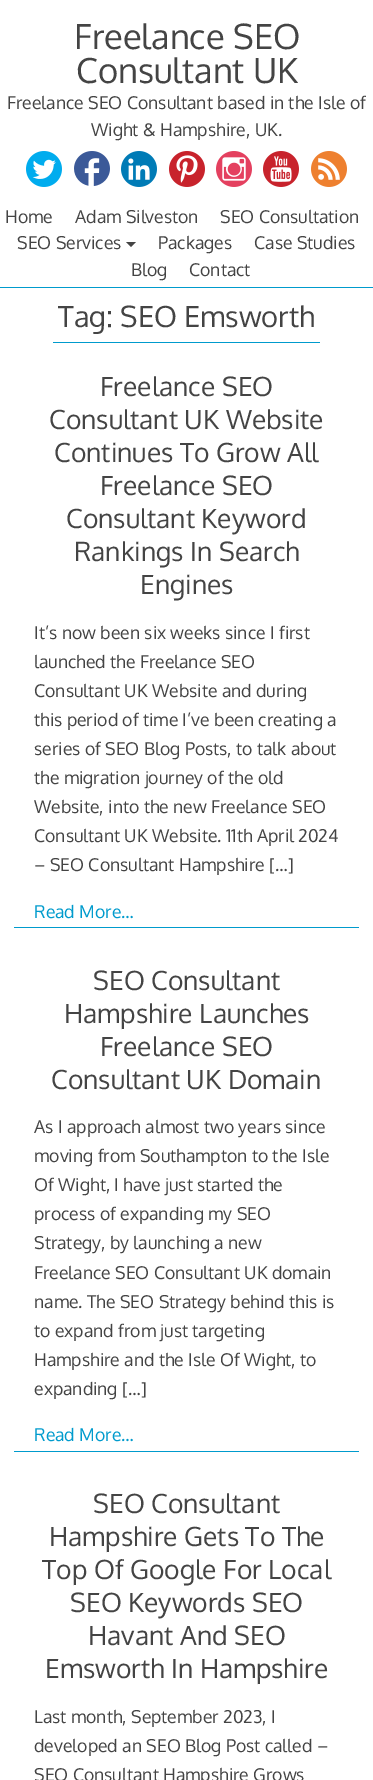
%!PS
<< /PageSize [373 1780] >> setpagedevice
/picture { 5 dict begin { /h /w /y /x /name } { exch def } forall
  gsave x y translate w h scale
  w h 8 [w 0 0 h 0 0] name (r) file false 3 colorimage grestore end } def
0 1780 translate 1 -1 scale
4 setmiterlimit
1 setgray
0 0 373 1780 rectfill
0 0.608 0.804 setrgbcolor
0 287 373 1 rectfill
/Oxygen-Regular [34.5 0 0 -34.5 0 0] selectfont
0.267 setgray
74 49 moveto (Freelance SEO) show
76 83 moveto (Consultant UK) show
/Oxygen-Regular [17.6 0 0 -17.6 0 0] selectfont
7 109 moveto (Freelance SEO Consultant based in the Isle of) show
91 136 moveto (Wight & Hampshire, UK.) show
(img1.rgb) 26 151 36 36 picture
(img2.rgb) 74 151 36 35 picture
(img3.rgb) 121 151 36 36 picture
(img4.rgb) 169 151 36 36 picture
(img5.rgb) 216 151 36 36 picture
(img6.rgb) 263 151 36 36 picture
(img7.rgb) 311 151 36 36 picture
5 223 moveto (Home) show
75 223 moveto (Adam Silveston) show
220 223 moveto (SEO Consultation) show
17 249 moveto (SEO Services) show
newpath 126 242 moveto 136 242 lineto 131 247 lineto closepath fill
158 249 moveto (Packages) show
254 249 moveto (Case Studies) show
131 276 moveto (Blog) show
189 276 moveto (Contact) show
0 0.608 0.804 setrgbcolor
53 342 267 1 rectfill
/Oxygen-Regular [29 0 0 -29 0 0] selectfont
0.267 setgray
58 327 moveto (Tag: SEO Emsworth) show
/Oxygen-Regular [26.4 0 0 -26.4 0 0] selectfont
100 396 moveto (Freelance SEO) show
49 429 moveto (Consultant UK Website) show
54 462 moveto (Continues To Grow All) show
100 495 moveto (Freelance SEO) show
66 528 moveto (Consultant Keyword) show
74 561 moveto (Rankings In Search) show
140 594 moveto (Engines) show
/Oxygen-Regular [17.6 0 0 -17.6 0 0] selectfont
34 639 moveto (It’s now been six weeks since I first) show
34 668 moveto (launched the Freelance SEO) show
34 697 moveto (Consultant UK Website and during) show
34 726 moveto (this period of time I’ve been creating a) show
34 755 moveto (series of SEO Blog Posts, to talk about) show
34 784 moveto (the migration journey of the old) show
34 813 moveto (Website, into the new Freelance SEO) show
34 842 moveto (Consultant UK Website. 11th April 2024) show
34 871 moveto (– SEO Consultant Hampshire […]) show
0 0.608 0.804 setrgbcolor
14 927 345 1 rectfill
34 918 moveto (Read More…) show
/Oxygen-Regular [26.4 0 0 -26.4 0 0] selectfont
0.267 setgray
93 990 moveto (SEO Consultant) show
64 1023 moveto (Hampshire Launches) show
100 1056 moveto (Freelance SEO) show
51 1089 moveto (Consultant UK Domain) show
/Oxygen-Regular [17.6 0 0 -17.6 0 0] selectfont
34 1133 moveto (As I approach almost two years since) show
34 1162 moveto (moving from Southampton to the Isle) show
34 1191 moveto (Of Wight, I have just started the) show
34 1220 moveto (process of expanding my SEO) show
34 1249 moveto (Strategy, by launching a new) show
34 1279 moveto (Freelance SEO Consultant UK domain) show
34 1308 moveto (name. The SEO Strategy behind this is) show
34 1337 moveto (to expand from just targeting) show
34 1366 moveto (Hampshire and the Isle Of Wight, to) show
34 1395 moveto (expanding […]) show
0 0.608 0.804 setrgbcolor
14 1451 345 1 rectfill
34 1441 moveto (Read More…) show
/Oxygen-Regular [26.4 0 0 -26.4 0 0] selectfont
0.267 setgray
93 1513 moveto (SEO Consultant) show
49 1546 moveto (Hampshire Gets To The) show
42 1579 moveto (Top Of Google For Local) show
70 1612 moveto (SEO Keywords SEO) show
88 1645 moveto (Havant And SEO) show
45 1678 moveto (Emsworth In Hampshire) show
/Oxygen-Regular [17.6 0 0 -17.6 0 0] selectfont
34 1723 moveto (Last month, September 2023, I) show
34 1752 moveto (developed an SEO Blog Post called –) show
34 1781 moveto (SEO Consultant Hampshire Grows) show
showpage
